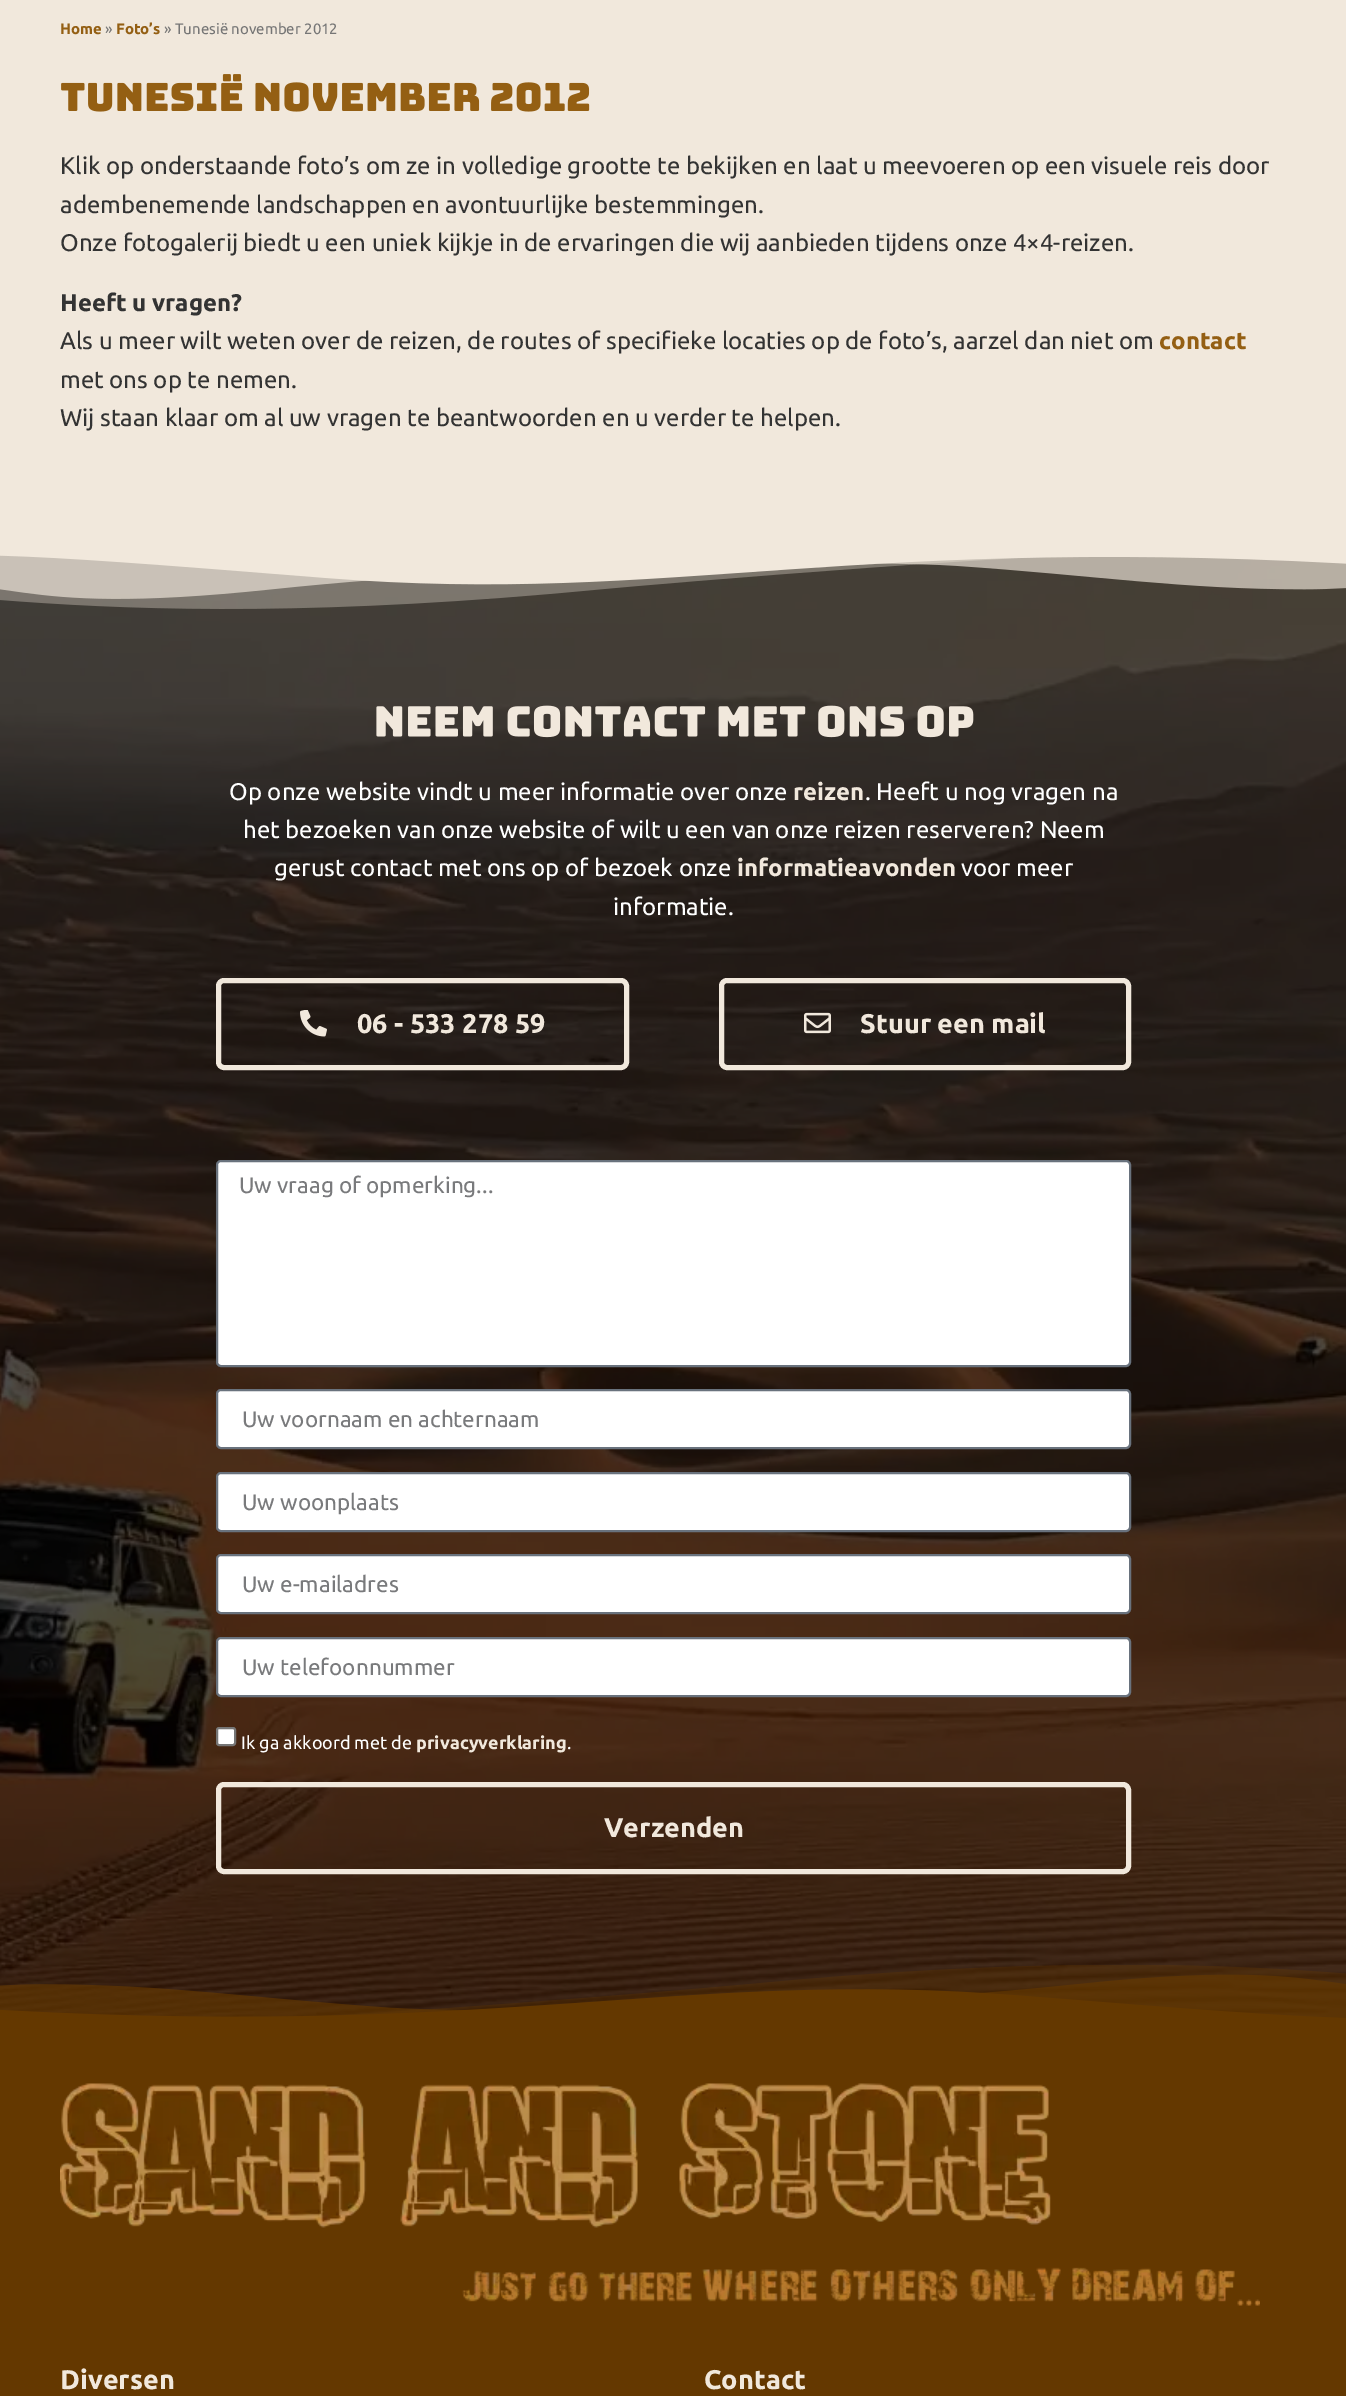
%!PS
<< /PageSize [1346 2396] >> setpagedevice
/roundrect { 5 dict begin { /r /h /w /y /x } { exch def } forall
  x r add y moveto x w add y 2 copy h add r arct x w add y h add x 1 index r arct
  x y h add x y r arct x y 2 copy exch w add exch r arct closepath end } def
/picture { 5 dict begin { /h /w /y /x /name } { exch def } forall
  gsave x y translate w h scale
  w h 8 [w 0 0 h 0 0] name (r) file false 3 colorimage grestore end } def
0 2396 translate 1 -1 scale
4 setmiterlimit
0.945 0.91 0.863 setrgbcolor
0 0 1346 2396 rectfill
/Ubuntu-Bold [15 0 0 -15 0 0] selectfont
0.58 0.373 0.075 setrgbcolor
60 34 moveto (Home) show
/Ubuntu-Regular [15 0 0 -15 0 0] selectfont
0.463 setgray
105 34 moveto (») show
/Ubuntu-Bold [15 0 0 -15 0 0] selectfont
0.58 0.373 0.075 setrgbcolor
116 34 moveto (Foto’s) show
/Ubuntu-Regular [15 0 0 -15 0 0] selectfont
0.463 setgray
164 34 moveto (» Tunesië november 2012) show
(img1.rgb) 61 74 529 38 picture
/Ubuntu-Regular [24 0 0 -24 0 0] selectfont
0.2 setgray
60 174 moveto (Klik op onderstaande foto’s om ze in volledige grootte te bekijken en laat u meevoeren op een visuele reis door) show
60 213 moveto (adembenemende landschappen en avontuurlijke bestemmingen.) show
60 251 moveto (Onze fotogalerij biedt u een uniek kijkje in de ervaringen die wij aanbieden tijdens onze 4×4-reizen.) show
/Ubuntu-Bold [24 0 0 -24 0 0] selectfont
60 311 moveto (Heeft u vragen?) show
/Ubuntu-Regular [24 0 0 -24 0 0] selectfont
60 349 moveto (Als u meer wilt weten over de reizen, de routes of specifieke locaties op de foto’s, aarzel dan niet om) show
/Ubuntu-Bold [24 0 0 -24 0 0] selectfont
0.58 0.373 0.075 setrgbcolor
1159 349 moveto (contact) show
/Ubuntu-Regular [24 0 0 -24 0 0] selectfont
0.2 setgray
60 388 moveto (met ons op te nemen.) show
60 426 moveto (Wij staan klaar om al uw vragen te beantwoorden en u verder te helpen.) show
0.392 0.22 0 setrgbcolor
0 2024 1346 372 rectfill
(img2.rgb) 0 555 1346 1463 picture
(img3.rgb) 0 550 1346 59 picture
(img4.rgb) 376 705 598 33 picture
1 setgray
229 800 moveto (Op onze website vindt u meer informatie over onze) show
/Ubuntu-Bold [24 0 0 -24 0 0] selectfont
0.945 0.91 0.863 setrgbcolor
793 800 moveto (reizen) show
/Ubuntu-Regular [24 0 0 -24 0 0] selectfont
1 setgray
865 800 moveto (. Heeft u nog vragen na) show
243 838 moveto (het bezoeken van onze website of wilt u een van onze reizen reserveren? Neem) show
274 876 moveto (gerust contact met ons op of bezoek onze) show
/Ubuntu-Bold [24 0 0 -24 0 0] selectfont
0.945 0.91 0.863 setrgbcolor
737 876 moveto (informatieavonden) show
/Ubuntu-Regular [24 0 0 -24 0 0] selectfont
1 setgray
961 876 moveto (voor meer) show
613 915 moveto (informatie.) show
0.945 0.91 0.863 setrgbcolor
5 setlinewidth
218.5 980.5 408 87 5.5 roundrect stroke
(img5.rgb) 300 1010 27 27 picture
/Ubuntu-Bold [27 0 0 -27 0 0] selectfont
357 1033 moveto (06 - 533 278 59) show
721.5 980.5 407 87 5.5 roundrect stroke
(img6.rgb) 804 1012 27 22 picture
860 1033 moveto (Stuur een mail) show
1 setgray
217 1161 913 205 4 roundrect gsave fill grestore
0.412 0.447 0.49 setrgbcolor
2 setlinewidth
stroke
/Ubuntu-Regular [22.5 0 0 -22.5 0 0] selectfont
0.475 0.478 0.486 setrgbcolor
239 1193 moveto (Uw vraag of opmerking...) show
1 setgray
217 1390 913 58 4 roundrect gsave fill grestore
0.412 0.447 0.49 setrgbcolor
stroke
0.475 0.478 0.486 setrgbcolor
242 1427 moveto (Uw voornaam en achternaam) show
1 setgray
217 1473 913 58 4 roundrect gsave fill grestore
0.412 0.447 0.49 setrgbcolor
stroke
0.475 0.478 0.486 setrgbcolor
242 1510 moveto (Uw woonplaats) show
1 setgray
217 1555 913 58 4 roundrect gsave fill grestore
0.412 0.447 0.49 setrgbcolor
stroke
0.475 0.478 0.486 setrgbcolor
242 1592 moveto (Uw e-mailadres) show
1 setgray
217 1638 913 58 4 roundrect gsave fill grestore
0.412 0.447 0.49 setrgbcolor
stroke
0.475 0.478 0.486 setrgbcolor
242 1675 moveto (Uw telefoonnummer) show
1 setgray
217 1728 18 17 2 roundrect gsave fill grestore
0.463 setgray
stroke
/Ubuntu-Regular [18 0 0 -18 0 0] selectfont
1 setgray
241 1749 moveto (Ik ga akkoord met de) show
/Ubuntu-Bold [18 0 0 -18 0 0] selectfont
0.945 0.91 0.863 setrgbcolor
416 1749 moveto (privacyverklaring) show
/Ubuntu-Regular [18 0 0 -18 0 0] selectfont
1 setgray
567 1749 moveto (.) show
0.945 0.91 0.863 setrgbcolor
5 setlinewidth
218.5 1784.5 910 87 5.5 roundrect stroke
/Ubuntu-Bold [27 0 0 -27 0 0] selectfont
604 1837 moveto (Verzenden) show
(img7.rgb) 0 1965 1346 59 picture
(img8.rgb) 60 2083 1200 223 picture
60 2389 moveto (Diversen) show
704 2389 moveto (Contact) show
showpage
